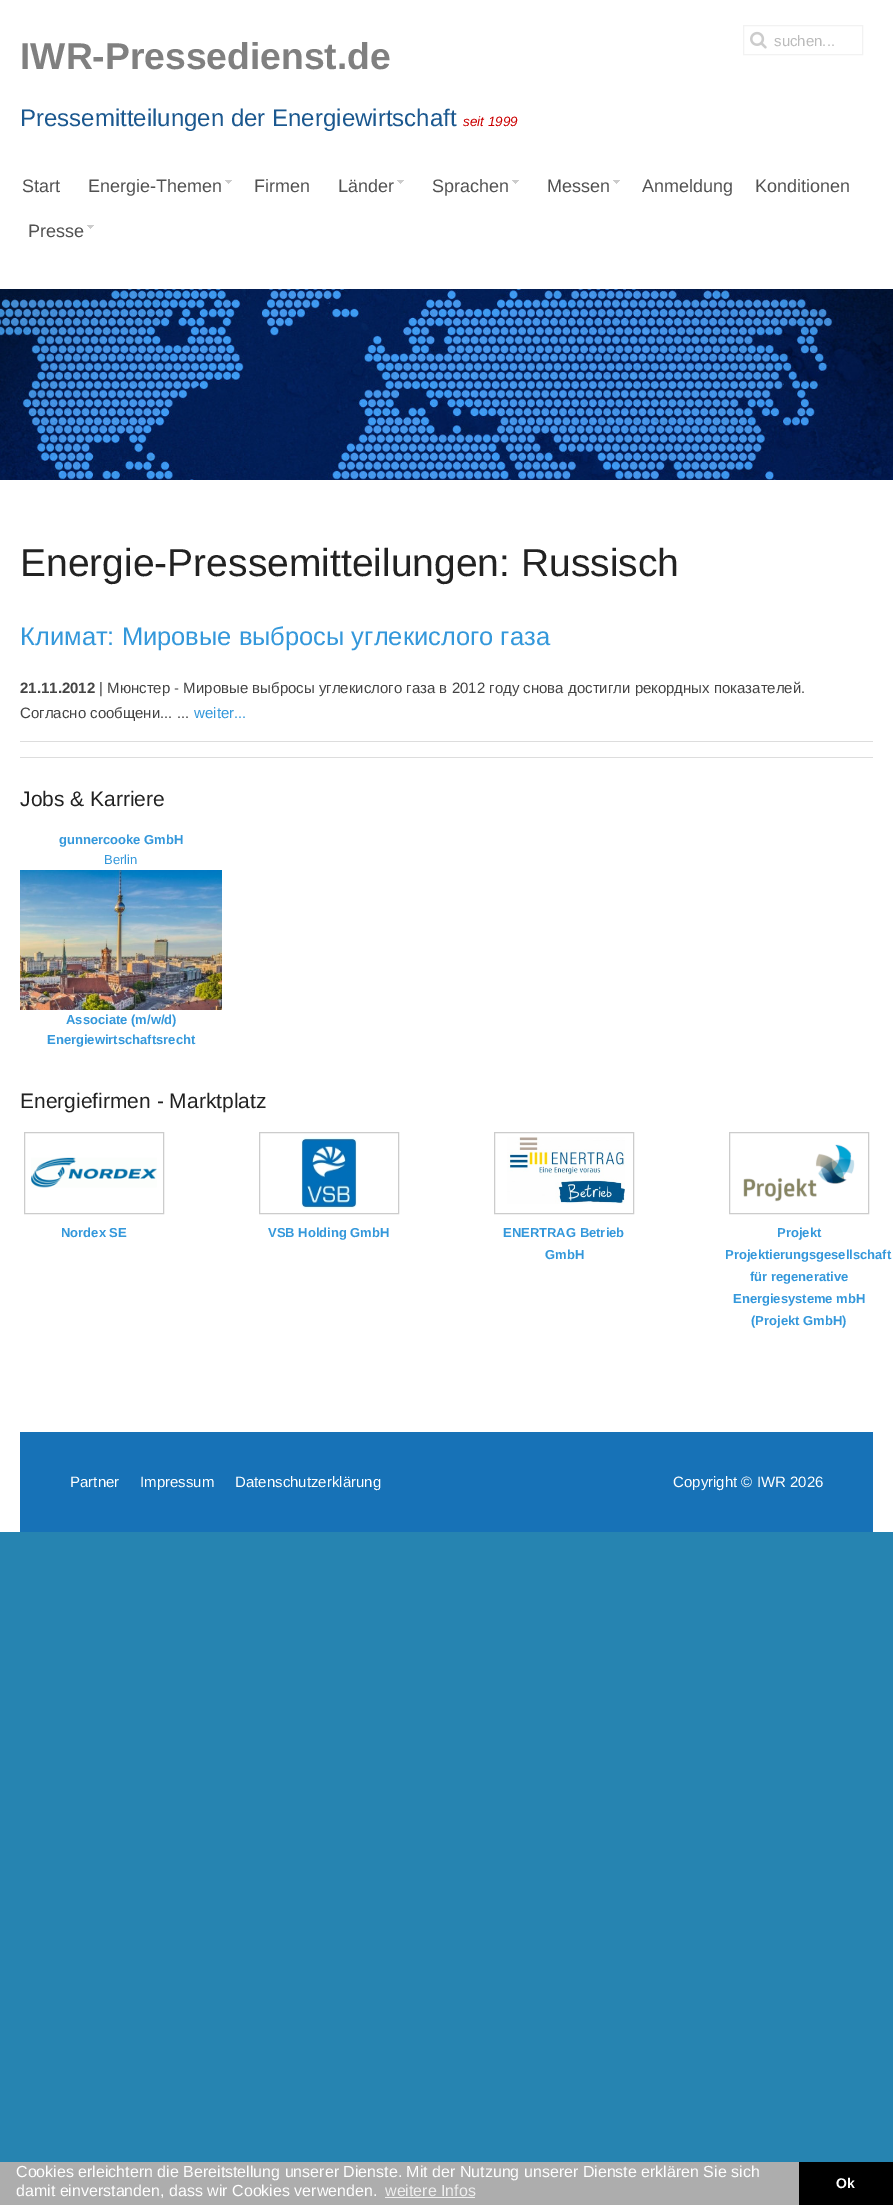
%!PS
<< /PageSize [893 2205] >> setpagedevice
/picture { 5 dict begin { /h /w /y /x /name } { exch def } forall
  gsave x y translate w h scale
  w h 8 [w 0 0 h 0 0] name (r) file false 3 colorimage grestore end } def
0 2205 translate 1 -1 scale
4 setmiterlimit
0.149 0.518 0.694 setrgbcolor
0 0 893 2205 rectfill
1 setgray
0 0 893 1532 rectfill
/LiberationSans-Bold [37.25 0 0 -37.25 0 0] selectfont
0.502 setgray
20 69 moveto (IWR-Pressedienst.de) show
/LiberationSans-Regular [24 0 0 -24 0 0] selectfont
0.106 0.345 0.561 setrgbcolor
20 126 moveto (Pressemitteilungen der Energiewirtschaft) show
/LiberationSans-Italic [13.5 0 0 -13.5 0 0] selectfont
0.8 0 0 setrgbcolor
463 126 moveto (seit 1999) show
0.949 setgray
743.5 25.5 119 29 rectstroke
(img1.rgb) 750 31 17 18 picture
/LiberationSans-Regular [15 0 0 -15 0 0] selectfont
0.733 setgray
774 46 moveto (suchen...) show
/LiberationSans-Regular [18 0 0 -18 0 0] selectfont
0.322 setgray
22 192 moveto (Start) show
(img2.rgb) 225 180 7 4 picture
88 192 moveto (Energie-Themen) show
254 192 moveto (Firmen) show
(img2.rgb) 397 180 7 4 picture
338 192 moveto (Länder) show
(img2.rgb) 512 180 7 4 picture
432 192 moveto (Sprachen) show
(img2.rgb) 613 180 7 4 picture
547 192 moveto (Messen) show
642 192 moveto (Anmeldung) show
755 192 moveto (Konditionen) show
(img2.rgb) 87 225 7 4 picture
28 237 moveto (Presse) show
(img3.rgb) 0 289 893 191 picture
/LiberationSans-Regular [39 0 0 -39 0 0] selectfont
0.133 setgray
20 576 moveto (Energie-Pressemitteilungen: Russisch) show
/LiberationSans-Regular [25.5 0 0 -25.5 0 0] selectfont
0.204 0.596 0.859 setrgbcolor
20 645 moveto (Климат: Мировые выбросы углекислого газа) show
/LiberationSans-Bold [15 0 0 -15 0 0] selectfont
0.267 setgray
20 693 moveto (21.11.2012) show
/LiberationSans-Regular [15 0 0 -15 0 0] selectfont
99 693 moveto (| Мюнстер - Мировые выбросы углекислого газа в 2012 году снова достигли рекордных показателей.) show
20 718 moveto (Согласно сообщени... ...) show
0.204 0.596 0.859 setrgbcolor
194 718 moveto (weiter...) show
0.867 setgray
20 741 853 1 rectfill
20 757 853 1 rectfill
/LiberationSans-Regular [21 0 0 -21 0 0] selectfont
0.133 setgray
20 806 moveto (Jobs & Karriere) show
/LiberationSans-Bold [13 0 0 -13 0 0] selectfont
0.204 0.596 0.859 setrgbcolor
59 844 moveto (gunnercooke GmbH) show
/LiberationSans-Regular [13 0 0 -13 0 0] selectfont
104 864 moveto (Berlin) show
(img4.rgb) 20 870 202 140 picture
/LiberationSans-Bold [13 0 0 -13 0 0] selectfont
66 1024 moveto (Associate \(m/w/d\)) show
47 1044 moveto (Energiewirtschaftsrecht) show
/LiberationSans-Regular [21 0 0 -21 0 0] selectfont
0.133 setgray
20 1108 moveto (Energiefirmen - Marktplatz) show
0.8 setgray
24.5 1132.5 139 81 rectstroke
(img5.rgb) 31 1157 126 31 picture
/LiberationSans-Bold [13 0 0 -13 0 0] selectfont
0.204 0.596 0.859 setrgbcolor
61 1237 moveto (Nordex SE) show
0.8 setgray
259.5 1132.5 139 81 rectstroke
(img6.rgb) 301 1137 56 72 picture
0.204 0.596 0.859 setrgbcolor
268 1237 moveto (VSB Holding GmbH) show
0.8 setgray
494.5 1132.5 139 81 rectstroke
(img7.rgb) 507 1137 118 67 picture
0.204 0.596 0.859 setrgbcolor
503 1237 moveto (ENERTRAG Betrieb) show
545 1259 moveto (GmbH) show
0.8 setgray
729.5 1132.5 139 81 rectstroke
(img8.rgb) 743 1144 112 58 picture
0.204 0.596 0.859 setrgbcolor
777 1237 moveto (Projekt) show
725 1259 moveto (Projektierungsgesellschaft) show
750 1281 moveto (für regenerative) show
733 1303 moveto (Energiesysteme mbH) show
751 1325 moveto (\(Projekt GmbH\)) show
0.09 0.447 0.718 setrgbcolor
20 1432 853 100 rectfill
/LiberationSans-Regular [15 0 0 -15 0 0] selectfont
1 setgray
70 1487 moveto (Partner) show
140 1487 moveto (Impressum) show
235 1487 moveto (Datenschutzerklärung) show
673 1487 moveto (Copyright © IWR 2026) show
0.678 setgray
0 2162 799 43 rectfill
/LiberationSans-Regular [16 0 0 -16 0 0] selectfont
1 setgray
16 2177 moveto (Cookies erleichtern die Bereitstellung unserer Dienste. Mit der Nutzung unserer Dienste erklären Sie sich) show
16 2196 moveto (damit einverstanden, dass wir Cookies verwenden.) show
0.937 setgray
385 2196 moveto (weitere Infos) show
385 2197 90 1 rectfill
0 setgray
799 2162 94 43 rectfill
/LiberationSans-Bold [14 0 0 -14 0 0] selectfont
1 setgray
836 2188 moveto (Ok) show
showpage
